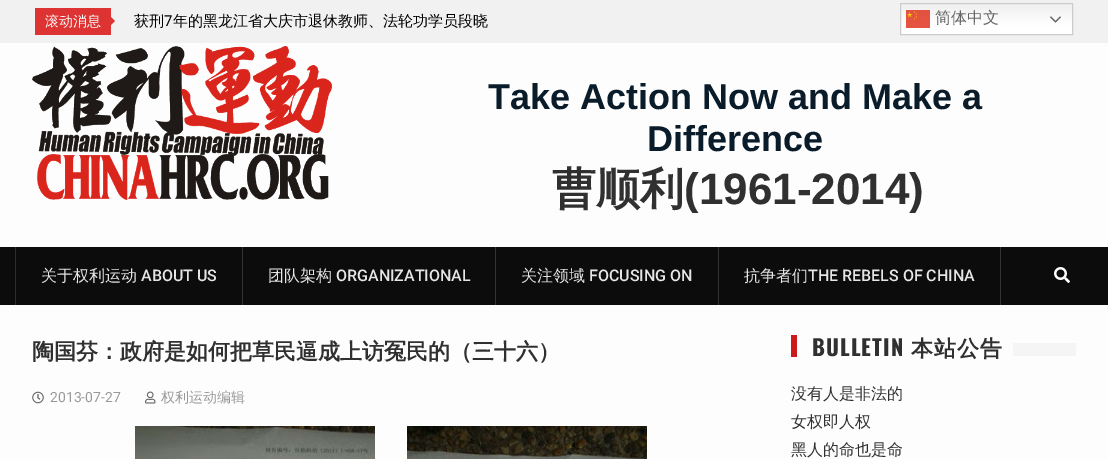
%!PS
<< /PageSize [1108 459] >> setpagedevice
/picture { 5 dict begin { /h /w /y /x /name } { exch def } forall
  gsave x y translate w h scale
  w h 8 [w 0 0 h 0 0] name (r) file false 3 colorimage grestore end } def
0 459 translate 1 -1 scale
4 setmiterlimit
0.992 setgray
0 0 1108 459 rectfill
0.945 setgray
0 0 1108 43 rectfill
0.867 0.2 0.2 setrgbcolor
35 8 76 27 rectfill
/WenQuanYiZenHei-Medium [14 0 0 -14 0 0] selectfont
0.992 setgray
45 26 moveto (滚动消息) show
0.867 0.2 0.2 setrgbcolor
newpath 105 31 moveto 105 11 lineto 115 21 lineto closepath fill
/WenQuanYiZenHei-Medium [15 0 0 -15 0 0] selectfont
0 setgray
134 26 moveto (获刑) show
/Roboto-Regular [15 0 0 -15 0 0] selectfont
164 26 moveto (7) show
/WenQuanYiZenHei-Medium [15 0 0 -15 0 0] selectfont
173 26 moveto (年的黑龙江省大庆市退休教师、法轮功学员段晓) show
gsave newpath 901 9 moveto 1072 9 lineto 1072 34 lineto 901 34 lineto closepath clip newpath
<< /ShadingType 2 /ColorSpace /DeviceRGB /Coords [987 3 987 35] /Extend [true true] /Function << /FunctionType 3 /Domain [0 1] /Functions [<< /FunctionType 2 /Domain [0 1] /C0 [0.937 0.937 0.937] /C1 [1 1 1] /N 1 >> << /FunctionType 2 /Domain [0 1] /C0 [1 1 1] /C1 [1 1 1] /N 1 >>] /Bounds [0.7] /Encode [0 1 0 1] >> >> shfill grestore
0.8 setgray
900.5 3.5 172 31 rectstroke
(img1.rgb) 906 10 24 18 picture
/WenQuanYiZenHei-Medium [16 0 0 -16 0 0] selectfont
0.4 setgray
935 23 moveto (简体中文) show
(img2.rgb) 1050 16 11 7 picture
(img3.rgb) 32 46 300 154 picture
/LiberationSans-Bold [36 0 0 -36 0 0] selectfont
0.039 0.106 0.165 setrgbcolor
488 109 moveto (Take Action Now and Make a) show
647 151 moveto (Difference) show
/WenQuanYiZenHei-Bold [44 0 0 -44 0 0] selectfont
0.188 setgray
552 204 moveto (曹顺利) show
/LiberationSans-Bold [44 0 0 -44 0 0] selectfont
684 204 moveto (\(1961-2014\)) show
0.047 setgray
0 247 1108 58 rectfill
0.204 setgray
242 247 1 58 rectfill
0.18 setgray
15 247 1 58 rectfill
/WenQuanYiZenHei-Medium [16 0 0 -16 0 0] selectfont
0.902 setgray
41 281 moveto (关于权利运动) show
/Roboto-Medium [16 0 0 -16 0 0] selectfont
141 281 moveto (ABOUT US) show
0.204 setgray
495 247 1 58 rectfill
/WenQuanYiZenHei-Medium [16 0 0 -16 0 0] selectfont
0.902 setgray
268 281 moveto (团队架构) show
/Roboto-Medium [16 0 0 -16 0 0] selectfont
336 281 moveto (ORGANIZATIONAL) show
0.204 setgray
718 247 1 58 rectfill
/WenQuanYiZenHei-Medium [16 0 0 -16 0 0] selectfont
0.902 setgray
521 281 moveto (关注领域) show
/Roboto-Medium [16 0 0 -16 0 0] selectfont
589 281 moveto (FOCUSING ON) show
0.204 setgray
1000 247 1 58 rectfill
/WenQuanYiZenHei-Medium [16 0 0 -16 0 0] selectfont
0.902 setgray
744 281 moveto (抗争者们) show
/Roboto-Medium [16 0 0 -16 0 0] selectfont
808 281 moveto (THE REBELS OF CHINA) show
(img4.rgb) 1054 267 16 16 picture
/WenQuanYiZenHei-Bold [22 0 0 -22 0 0] selectfont
0.188 setgray
32 359 moveto (陶国芬：政府是如何把草民逼成上访冤民的（三十六）) show
(img5.rgb) 32 391 12 13 picture
/Roboto-Regular [14 0 0 -14 0 0] selectfont
0.6 setgray
50 402 moveto (2013-07-27) show
(img6.rgb) 145 391 11 13 picture
/WenQuanYiZenHei-Medium [14 0 0 -14 0 0] selectfont
161 402 moveto (权利运动编辑) show
(img7.rgb) 135 426 240 33 picture
(img8.rgb) 407 426 240 33 picture
0.8 0.098 0.098 setrgbcolor
791 335 6 22 rectfill
/Oswald-Bold [22 0 0 -22 0 0] selectfont
0.188 setgray
812 356 moveto 1 0 (BULLETIN) ashow
/WenQuanYiZenHei-Bold [22 0 0 -22 0 0] selectfont
911 356 moveto 1 0 (本站公告) ashow
0.961 setgray
1013 343 63 13 rectfill
/WenQuanYiZenHei-Medium [16 0 0 -16 0 0] selectfont
0.188 setgray
791 399 moveto (没有人是非法的) show
791 427 moveto (女权即人权) show
791 455 moveto (黑人的命也是命) show
showpage
